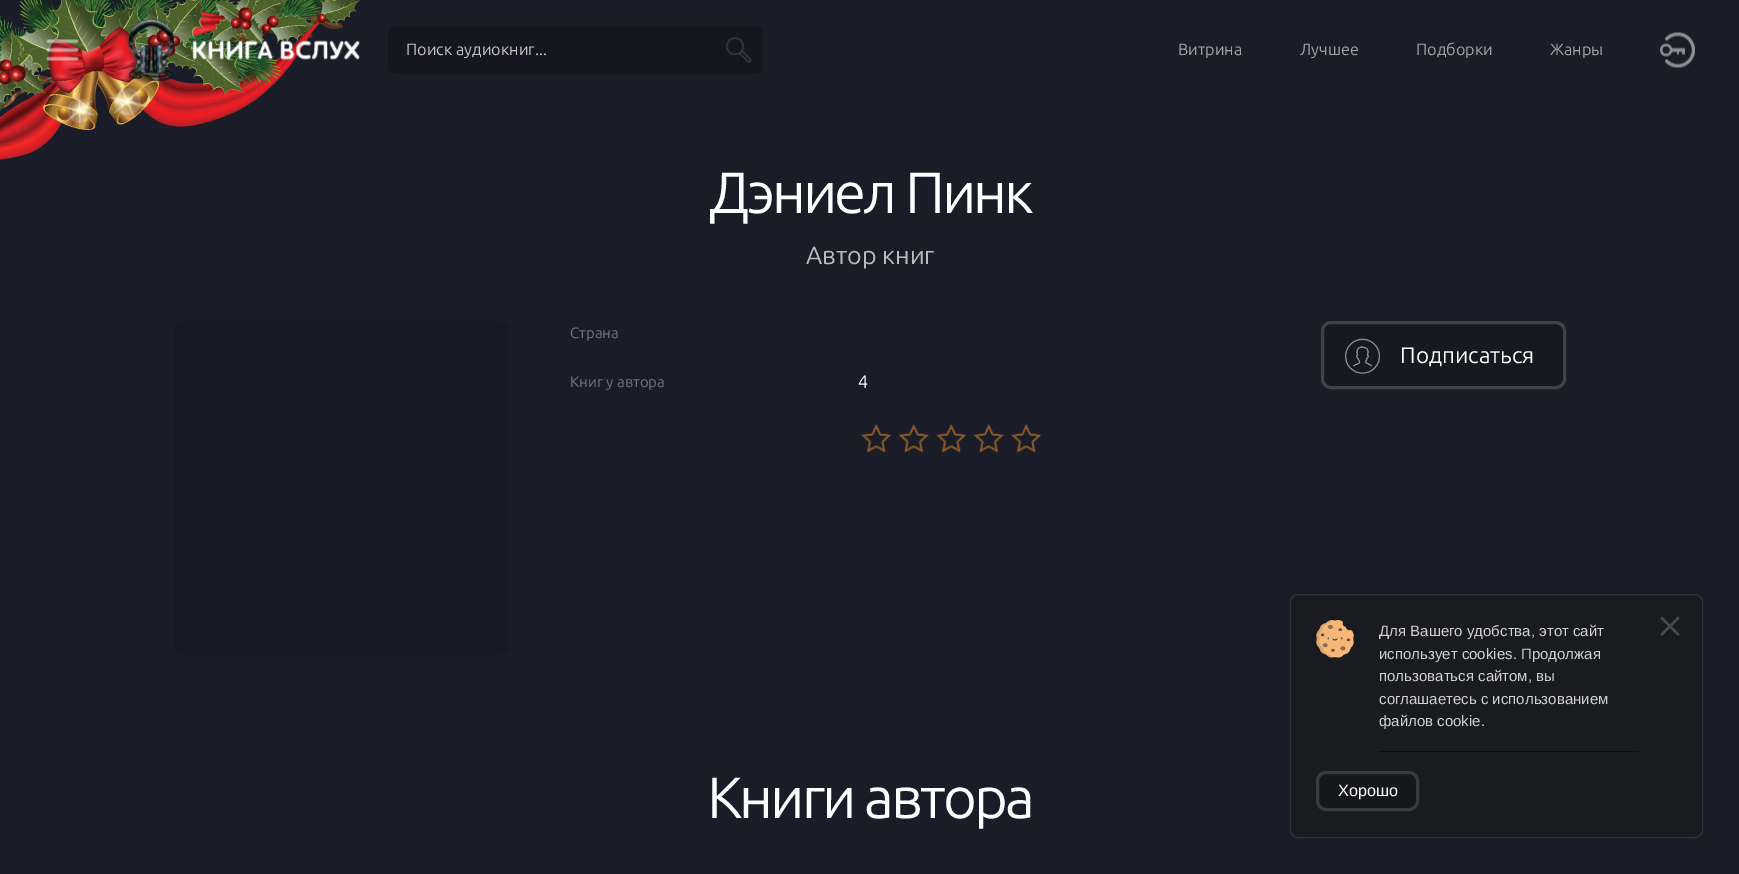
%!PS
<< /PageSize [1739 874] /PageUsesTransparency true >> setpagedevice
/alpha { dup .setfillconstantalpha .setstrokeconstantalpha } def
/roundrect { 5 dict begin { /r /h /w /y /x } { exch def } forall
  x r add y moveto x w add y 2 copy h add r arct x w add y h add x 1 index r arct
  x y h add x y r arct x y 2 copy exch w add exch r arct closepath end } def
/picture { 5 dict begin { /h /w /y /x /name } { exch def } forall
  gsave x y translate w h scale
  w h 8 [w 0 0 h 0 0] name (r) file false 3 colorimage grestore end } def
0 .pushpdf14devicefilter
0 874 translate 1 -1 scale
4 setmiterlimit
0.102 0.11 0.157 setrgbcolor
0 0 1739 874 rectfill
(img1.rgb) 0 0 360 160 picture
(img2.rgb) 46 39 33 22 picture
(img3.rgb) 125 17 235 67 picture
0.082 0.086 0.125 setrgbcolor
388 26 375 48 8 roundrect fill
(img5.rgb) 726 38 25 24 picture
(img4.rgb) 726 37 26 26 picture
/Ubuntu-Regular [16.25 0 0 -16.25 0 0] selectfont
0.773 0.773 0.78 setrgbcolor
406 55 moveto (Поиск аудиокниг...) show
0.639 0.643 0.663 setrgbcolor
1178 55 moveto (Витрина) show
1300 55 moveto (Лучшее) show
1416 55 moveto (Подборки) show
1550 55 moveto (Жанры) show
(img6.rgb) 1660 32 35 36 picture
/Ubuntu-Regular [58 0 0 -58 0 0] selectfont
1 setgray
709 213 moveto -2.9 0 (Дэниел Пинк) ashow
/Ubuntu-Regular [25 0 0 -25 0 0] selectfont
0.729 0.733 0.749 setrgbcolor
806 264 moveto (Автор книг) show
0.09 0.098 0.141 setrgbcolor
174 321 334 334 8 roundrect fill
/Ubuntu-Regular [15 0 0 -15 0 0] selectfont
0.443 0.447 0.478 setrgbcolor
570 338 moveto (Страна) show
570 387 moveto (Книг у автора) show
/Ubuntu-Regular [18 0 0 -18 0 0] selectfont
1 setgray
858 388 moveto (4) show
(img7.rgb) 861 424 180 29 picture
0.086 0.094 0.133 setrgbcolor
1321 321 245 68 10 roundrect fill
0.18 alpha
1 setgray
3 setlinewidth
1322.5 322.5 242 65 8.5 roundrect stroke
1 alpha
(img9.rgb) 1345 339 35 34 picture
(img8.rgb) 1345 338 35 36 picture
/Ubuntu-Regular [22.5 0 0 -22.5 0 0] selectfont
1400 363 moveto (Подписаться) show
/Ubuntu-Regular [58 0 0 -58 0 0] selectfont
707 818 moveto -2.9 0 (Книги автора) ashow
0.102 0.106 0.125 setrgbcolor
1290 594 413 244 8 roundrect fill
0.1 alpha
1 setgray
1 setlinewidth
1290.5 594.5 412 243 7.5 roundrect stroke
1 alpha
(img10.rgb) 1316 620 38 38 picture
/LiberationSans-Regular [15 0 0 -15 0 0] selectfont
0.82 0.82 0.824 setrgbcolor
1379 636 moveto (Для Вашего удобства, этот сайт) show
0.282 0.286 0.302 setrgbcolor
newpath 1662 616.5 moveto 1679.5 634 lineto 1678 636 lineto 1660.5 618.5 lineto closepath fill
newpath 1660.5 634 moveto 1678 616.5 lineto 1679.5 618.5 lineto 1662 636 lineto closepath fill
0.82 0.82 0.824 setrgbcolor
1379 659 moveto (использует cookies. Продолжая) show
1379 681 moveto (пользоваться сайтом, вы) show
1379 704 moveto (соглашаетесь с использованием) show
1379 726 moveto (файлов cookie.) show
0.051 0.055 0.063 setrgbcolor
1379 751 260 1 rectfill
0.086 0.09 0.106 setrgbcolor
1317.5 772.5 100 37 8.5 roundrect gsave fill grestore
0.224 0.227 0.239 setrgbcolor
3 setlinewidth
stroke
/LiberationSans-Regular [16.25 0 0 -16.25 0 0] selectfont
1 setgray
1338 796 moveto (Хорошо) show
.poppdf14devicefilter showpage
